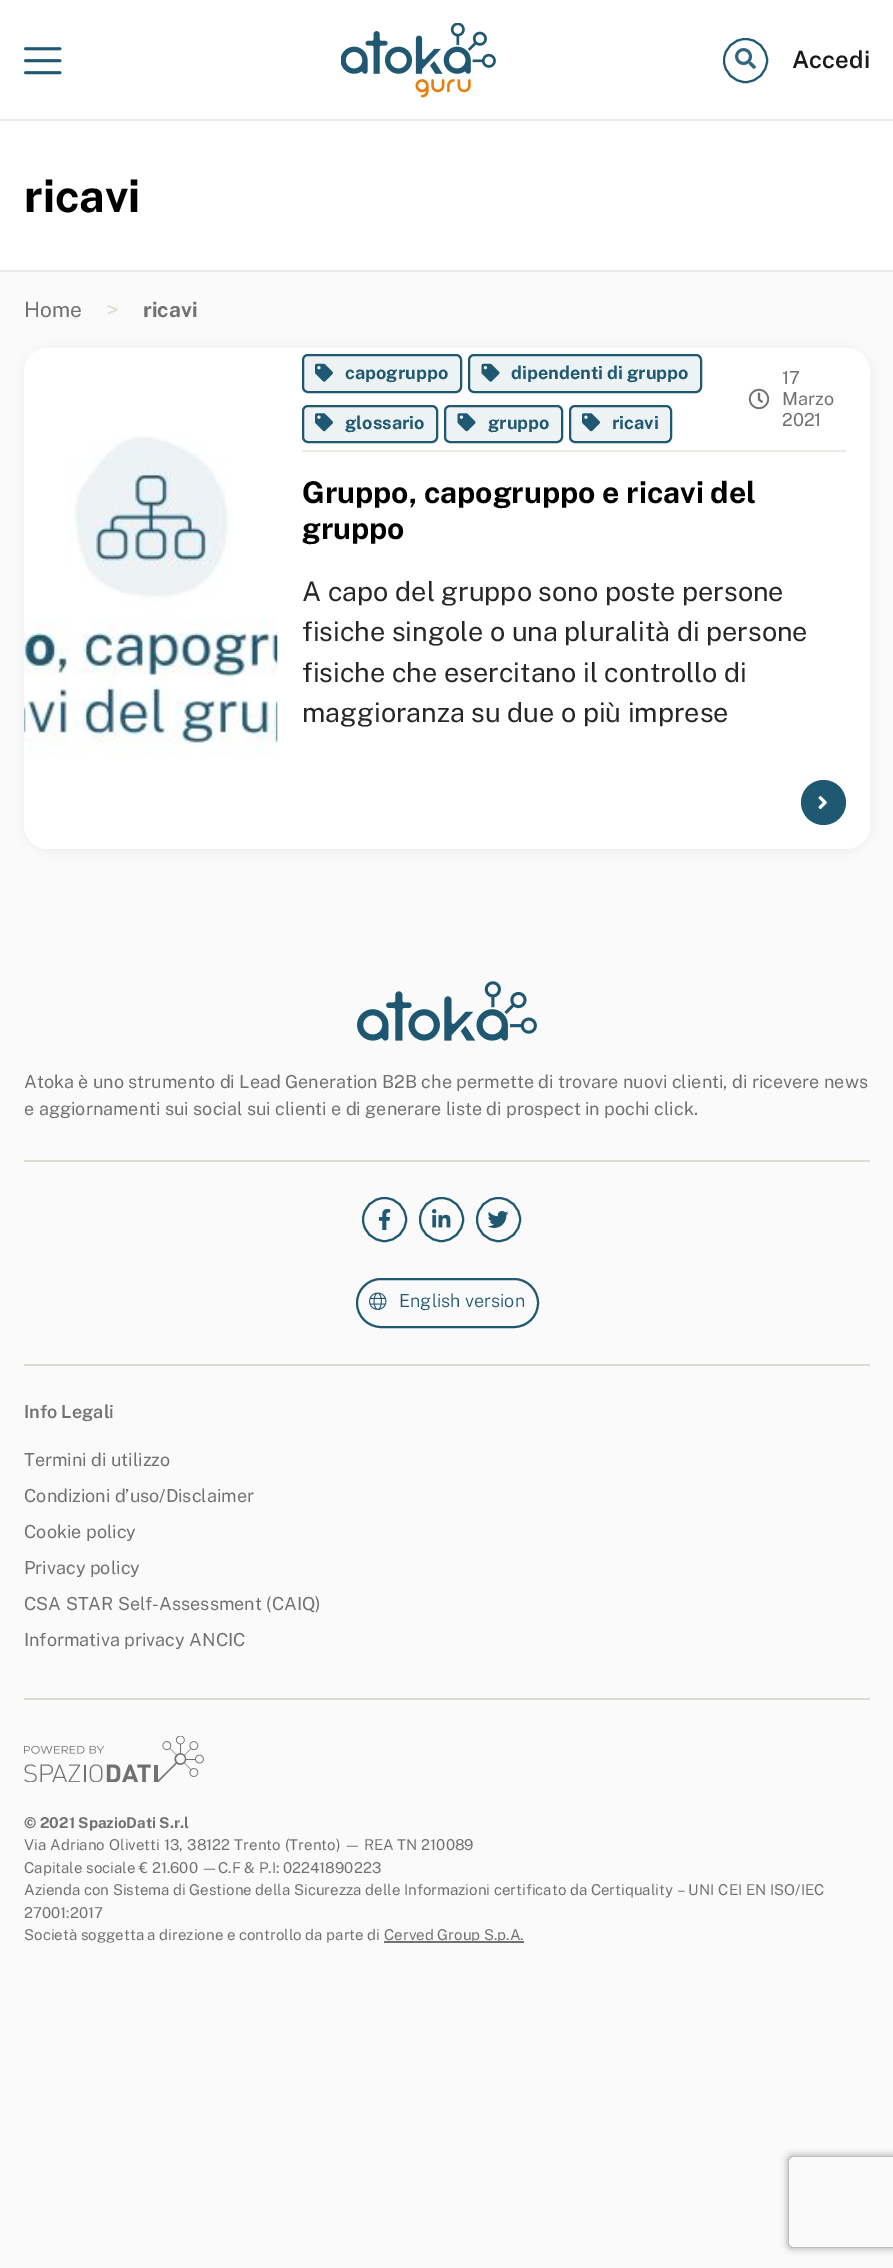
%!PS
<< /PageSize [893 2268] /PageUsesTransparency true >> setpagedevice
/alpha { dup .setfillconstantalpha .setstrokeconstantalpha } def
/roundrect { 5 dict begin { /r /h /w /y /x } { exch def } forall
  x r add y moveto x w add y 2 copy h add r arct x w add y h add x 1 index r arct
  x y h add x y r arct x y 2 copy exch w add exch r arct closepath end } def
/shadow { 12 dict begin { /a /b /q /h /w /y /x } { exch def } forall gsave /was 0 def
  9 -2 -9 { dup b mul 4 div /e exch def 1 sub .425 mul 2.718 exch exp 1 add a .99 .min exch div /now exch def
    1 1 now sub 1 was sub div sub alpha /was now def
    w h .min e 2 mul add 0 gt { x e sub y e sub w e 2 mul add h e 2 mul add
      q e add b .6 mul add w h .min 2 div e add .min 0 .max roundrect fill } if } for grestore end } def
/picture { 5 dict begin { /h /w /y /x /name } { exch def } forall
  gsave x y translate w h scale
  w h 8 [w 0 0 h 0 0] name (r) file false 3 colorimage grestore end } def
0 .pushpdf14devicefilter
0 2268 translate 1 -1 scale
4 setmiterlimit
0.98 setgray
0 0 893 2268 rectfill
1 setgray
0 0 893 119 rectfill
0.922 setgray
0 119 893 2 rectfill
(img1.rgb) 24 47 38 28 picture
(img2.rgb) 341 23 155 75 picture
0.122 0.345 0.443 setrgbcolor
2 setlinewidth
newpath 745.5 60.5 21.5 0 360 arc closepath stroke
(img3.rgb) 735 48 21 21 picture
/PublicSans-SemiBold [24 0 0 -24 0 0] selectfont
0.102 setgray
792 68 moveto (Accedi) show
1 setgray
0 121 893 149 rectfill
0.922 setgray
0 270 893 2 rectfill
/PublicSans-Bold [45 0 0 -45 0 0] selectfont
0 setgray
24 212 moveto (ricavi) show
/PublicSans-Regular [21 0 0 -21 0 0] selectfont
0.443 setgray
24 317 moveto (Home) show
/PublicSans-Regular [24 0 0 -24 0 0] selectfont
0.875 0.863 0.824 setrgbcolor
106 318 moveto (>) show
/PublicSans-Bold [21 0 0 -21 0 0] selectfont
0.443 setgray
143 317 moveto (ricavi) show
0.51 setgray
26 351 843 498 23 8 0.15 shadow
1 setgray
24 348 846 501 24 roundrect fill
(img4.rgb) 24 436 254 320 picture
0.925 0.918 0.894 setrgbcolor
302 450 544 2 rectfill
0.929 0.949 0.957 setrgbcolor
303 355 158 37 5 roundrect gsave fill grestore
0.122 0.345 0.443 setrgbcolor
stroke
(img5.rgb) 315 363 18 19 picture
/PublicSans-Bold [18 0 0 -18 0 0] selectfont
345 379 moveto (capogruppo) show
0.929 0.949 0.957 setrgbcolor
469 355 232 37 5 roundrect gsave fill grestore
0.122 0.345 0.443 setrgbcolor
stroke
(img6.rgb) 481 363 19 19 picture
511 379 moveto (dipendenti di gruppo) show
0.929 0.949 0.957 setrgbcolor
303 406 134 36 5 roundrect gsave fill grestore
0.122 0.345 0.443 setrgbcolor
stroke
(img7.rgb) 315 413 18 19 picture
345 429 moveto (glossario) show
0.929 0.949 0.957 setrgbcolor
445 406 117 36 5 roundrect gsave fill grestore
0.122 0.345 0.443 setrgbcolor
stroke
(img8.rgb) 457 413 19 19 picture
488 429 moveto (gruppo) show
0.929 0.949 0.957 setrgbcolor
570 406 101 36 5 roundrect gsave fill grestore
0.122 0.345 0.443 setrgbcolor
stroke
(img7.rgb) 582 413 18 19 picture
612 429 moveto (ricavi) show
(img9.rgb) 748 388 22 22 picture
/PublicSans-Regular [18 0 0 -18 0 0] selectfont
0.443 setgray
782 384 moveto (17) show
782 405 moveto (Marzo) show
782 426 moveto (2021) show
/PublicSans-Bold [30 0 0 -30 0 0] selectfont
0 setgray
302 503 moveto (Gruppo, capogruppo e ricavi del) show
302 539 moveto (gruppo) show
/PublicSans-Regular [27 0 0 -27 0 0] selectfont
0.149 setgray
302 601 moveto (A capo del gruppo sono poste persone) show
302 641 moveto (fisiche singole o una pluralità di persone) show
302 682 moveto (fisiche che esercitano il controllo di) show
302 722 moveto (maggioranza su due o più imprese) show
0.122 0.345 0.443 setrgbcolor
newpath 823.5 802.5 22.5 0 360 arc closepath fill
(img10.rgb) 818 795 9 14 picture
(img11.rgb) 357 981 180 60 picture
/PublicSans-Regular [18 0 0 -18 0 0] selectfont
0.443 setgray
24 1088 moveto (Atoka è uno strumento di Lead Generation B2B che permette di trovare nuovi clienti, di ricevere news) show
24 1115 moveto (e aggiornamenti sui social sui clienti e di generare liste di prospect in pochi click.) show
0.875 0.863 0.824 setrgbcolor
24 1160 846 2 rectfill
0.122 0.345 0.443 setrgbcolor
newpath 384.5 1219.5 21.5 0 360 arc closepath stroke
(img12.rgb) 378 1209 13 21 picture
newpath 441.5 1219.5 21.5 0 360 arc closepath stroke
(img13.rgb) 432 1209 19 19 picture
newpath 498.5 1219.5 21.5 0 360 arc closepath stroke
(img14.rgb) 487 1211 22 17 picture
357 1279 181 48 24 roundrect stroke
(img15.rgb) 369 1292 18 18 picture
/PublicSans-Light [18 0 0 -18 0 0] selectfont
399 1307 moveto (English version) show
0.875 0.863 0.824 setrgbcolor
24 1364 846 2 rectfill
/PublicSans-SemiBold [18 0 0 -18 0 0] selectfont
0.443 setgray
24 1418 moveto (Info Legali) show
/PublicSans-Regular [18 0 0 -18 0 0] selectfont
24 1466 moveto (Termini di utilizzo) show
24 1502 moveto (Condizioni d’uso/Disclaimer) show
24 1538 moveto (Cookie policy) show
24 1574 moveto (Privacy policy) show
24 1610 moveto (CSA STAR Self-Assessment \(CAIQ\)) show
24 1646 moveto (Informativa privacy ANCIC) show
0.875 0.863 0.824 setrgbcolor
24 1698 846 2 rectfill
(img16.rgb) 24 1736 180 46 picture
/PublicSans-Bold [15 0 0 -15 0 0] selectfont
0.443 setgray
24 1828 moveto (© 2021 SpazioDati S.r.l) show
/PublicSans-Regular [15 0 0 -15 0 0] selectfont
24 1850 moveto 0.5 0 32 (Via Adriano Olivetti 13, 38122 Trento \(Trento\) —) widthshow
364 1850 moveto 0.5 0 32 (REA) widthshow
397 1850 moveto 0.5 0 32 (TN 210089) widthshow
24 1873 moveto (Capitale sociale € 21.600 —C.F & P.I: 02241890223) show
24 1895 moveto (Azienda con Sistema di Gestione della Sicurezza delle Informazioni certificato da Certiquality – UNI CEI EN ISO/IEC) show
24 1918 moveto (27001:2017) show
24 1940 moveto (Società soggetta a direzione e controllo da parte di) show
384 1941 140 2 rectfill
384 1940 moveto (Cerved Group S.p.A.) show
gsave
newpath 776 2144 moveto 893 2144 lineto 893 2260 lineto 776 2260 lineto closepath 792 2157 moveto 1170 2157 lineto 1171.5 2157 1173 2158.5 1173 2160 curveto 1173 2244 lineto 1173 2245.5 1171.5 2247 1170 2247 curveto 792 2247 lineto 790.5 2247 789 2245.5 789 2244 curveto 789 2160 lineto 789 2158.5 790.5 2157 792 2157 curveto closepath eoclip newpath
0.502 setgray
789 2157 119 90 3 4 1 shadow
grestore
.poppdf14devicefilter showpage
